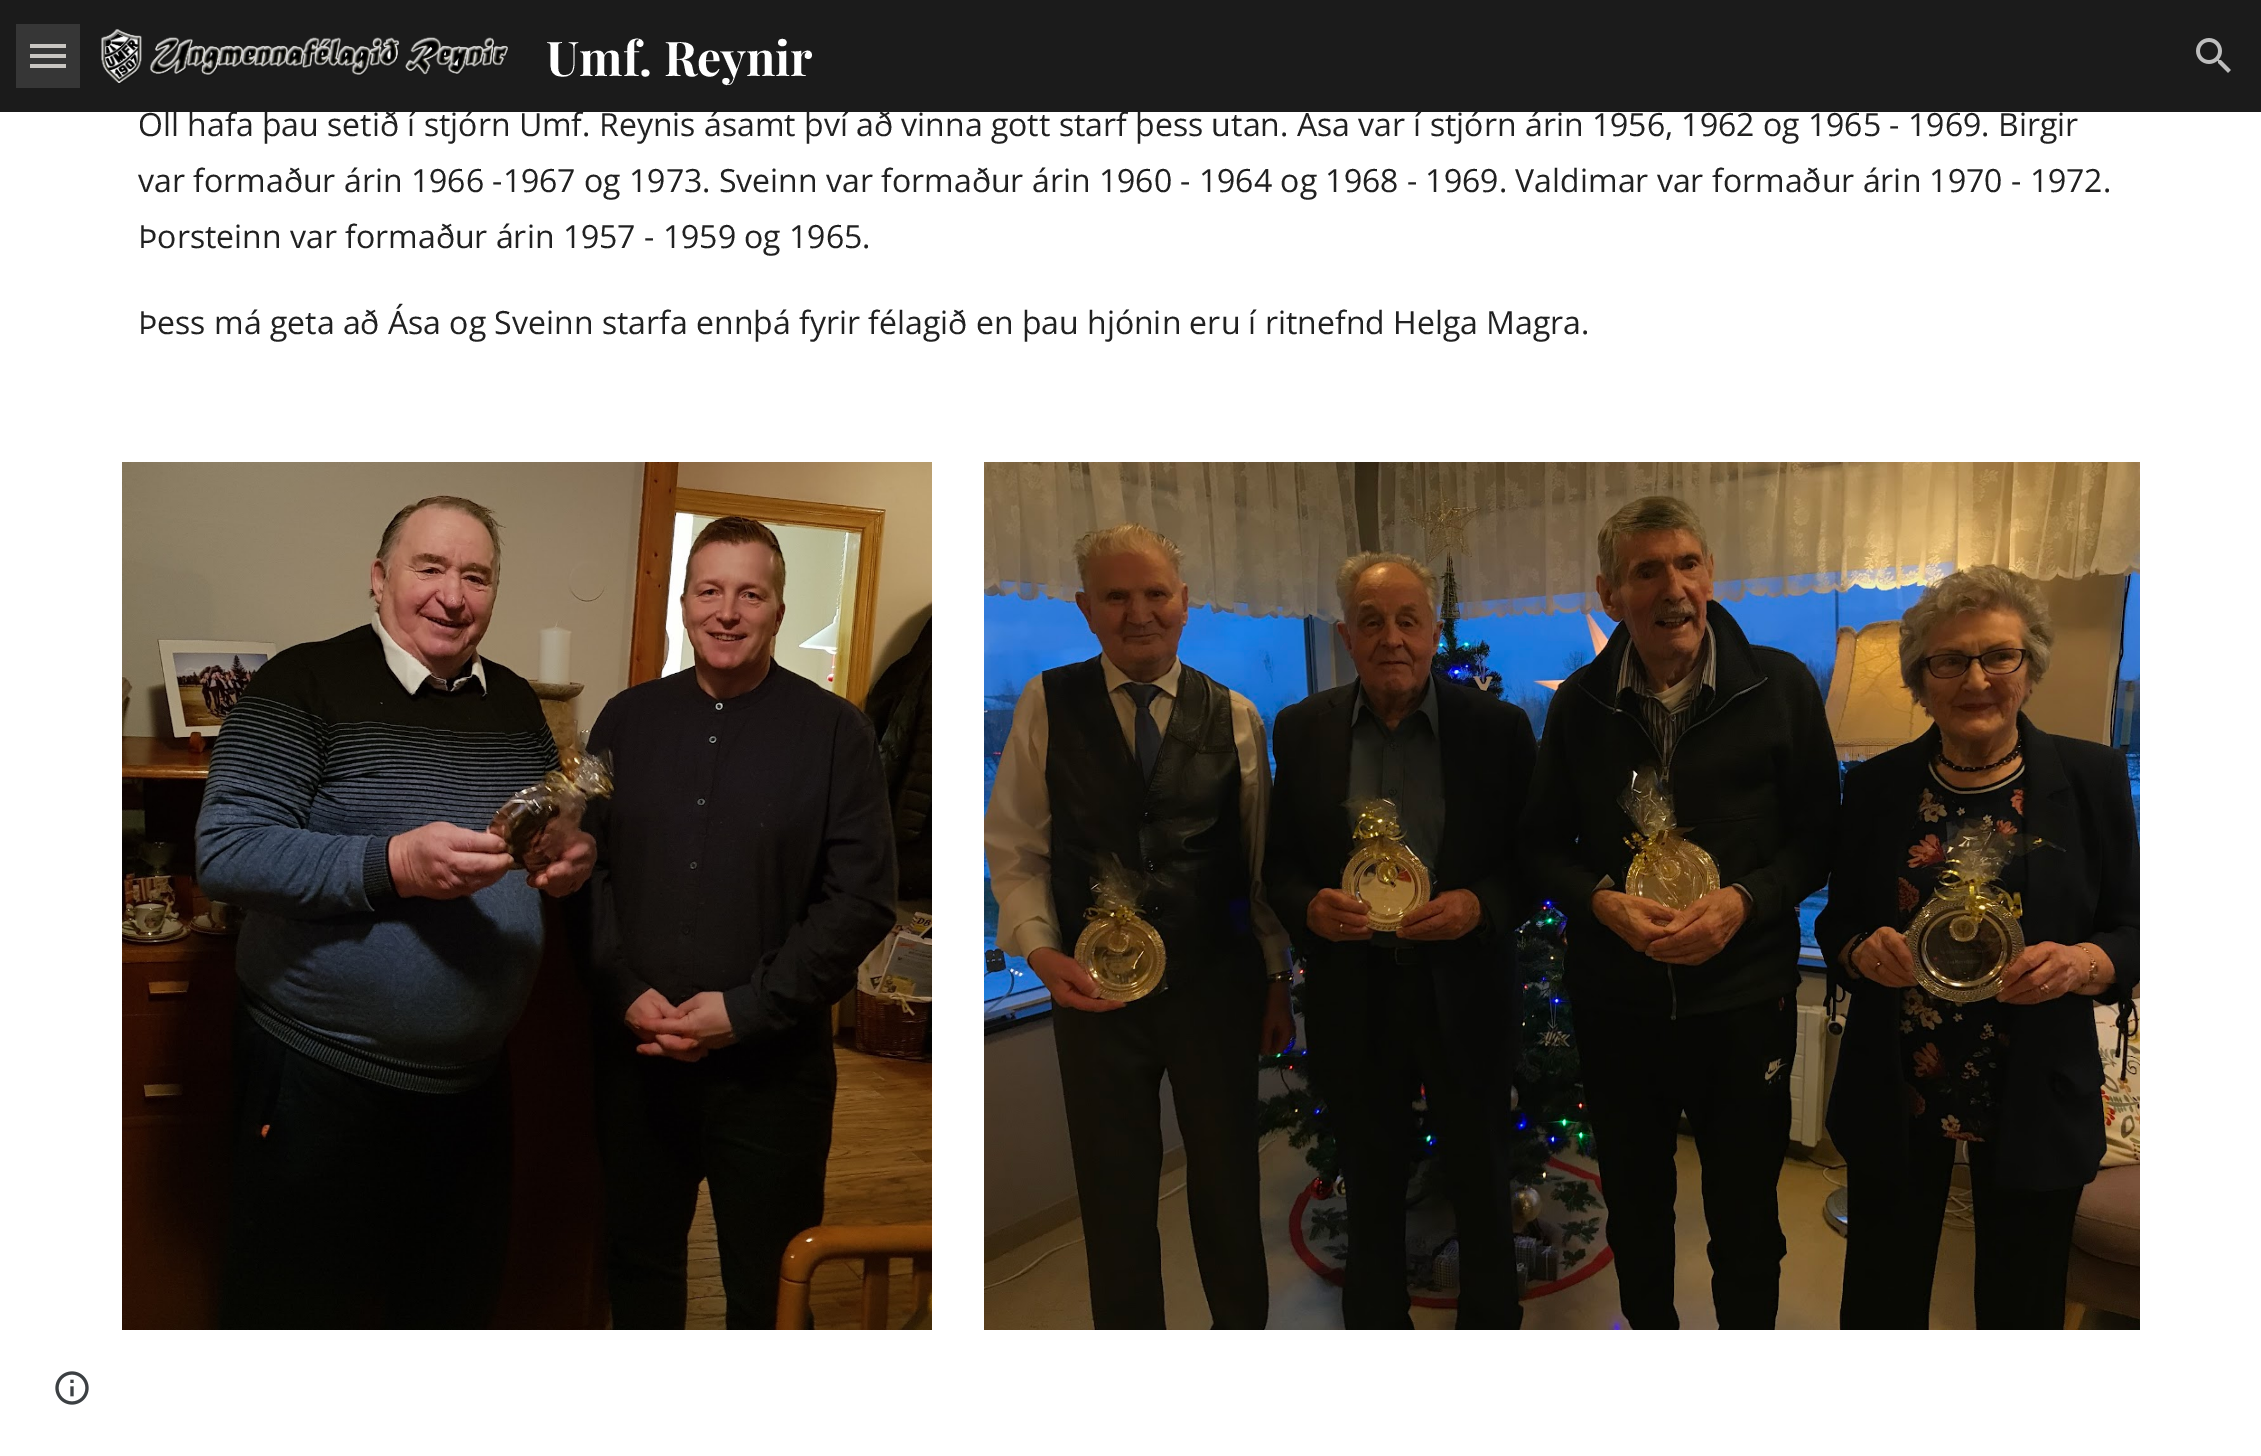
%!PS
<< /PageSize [2261 1456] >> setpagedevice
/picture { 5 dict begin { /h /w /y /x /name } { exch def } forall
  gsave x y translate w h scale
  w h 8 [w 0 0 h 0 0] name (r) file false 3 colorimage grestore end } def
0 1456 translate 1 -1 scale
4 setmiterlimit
1 setgray
0 0 2261 1456 rectfill
/OpenSans-Regular [32 0 0 -32 0 0] selectfont
0.129 setgray
138 136 moveto (Öll hafa þau setið í stjórn Umf. Reynis ásamt því að vinna gott starf þess utan. Ása var í stjórn árin 1956, 1962 og 1965 - 1969. Birgir) show
0.106 setgray
0 0 2261 112 rectfill
0.212 setgray
16 24 64 64 rectfill
0.784 0.773 0.757 setrgbcolor
30 44 36 4 rectfill
30 54 36 4 rectfill
30 64 36 4 rectfill
(img1.rgb) 101 29 407 55 picture
/PlayfairDisplay-Bold [48 0 0 -48 0 0] selectfont
1 setgray
546 76 moveto (Umf. Reynir) show
(img2.rgb) 2196 38 35 35 picture
/OpenSans-Regular [32 0 0 -32 0 0] selectfont
0.129 setgray
138 192 moveto (var formaður árin 1966 -1967 og 1973. Sveinn var formaður árin 1960 - 1964 og 1968 - 1969. Valdimar var formaður árin 1970 - 1972.) show
138 248 moveto (Þorsteinn var formaður árin 1957 - 1959 og 1965.) show
138 334 moveto (Þess má geta að Ása og Sveinn starfa ennþá fyrir félagið en þau hjónin eru í ritnefnd Helga Magra.) show
(img3.rgb) 122 462 810 868 picture
(img4.rgb) 984 462 1156 868 picture
(img5.rgb) 55 1371 34 34 picture
showpage
